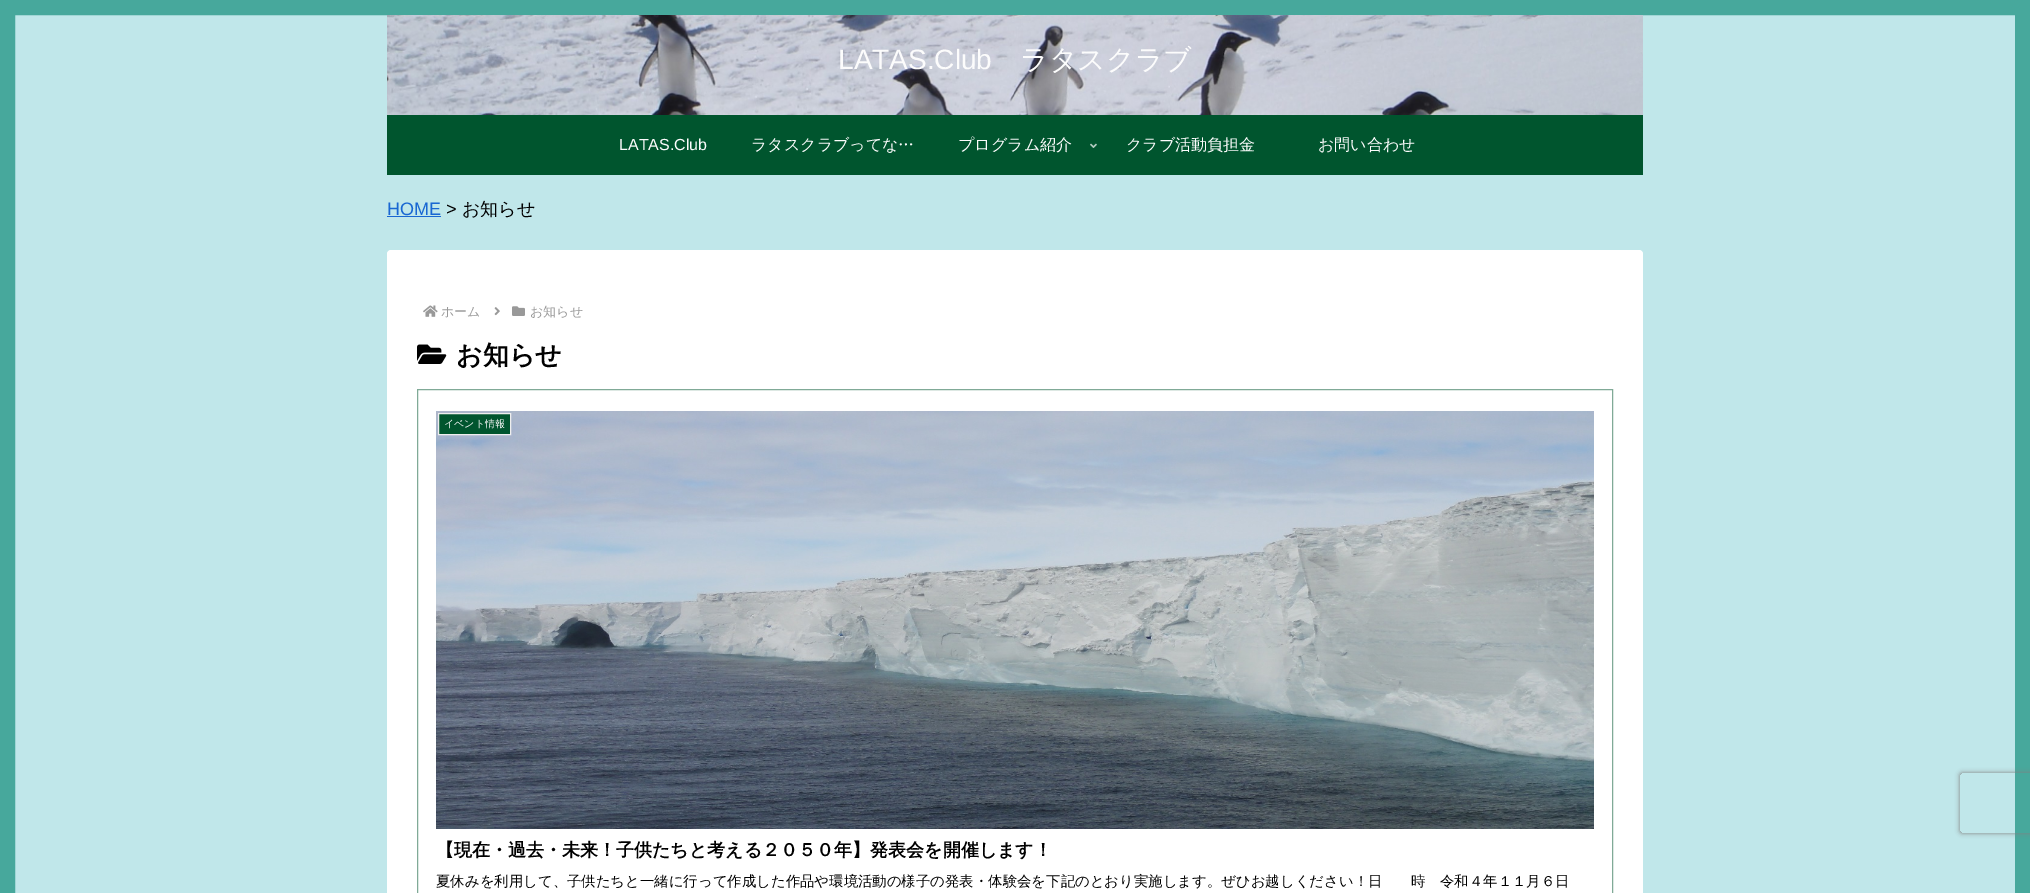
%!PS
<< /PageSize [2030 893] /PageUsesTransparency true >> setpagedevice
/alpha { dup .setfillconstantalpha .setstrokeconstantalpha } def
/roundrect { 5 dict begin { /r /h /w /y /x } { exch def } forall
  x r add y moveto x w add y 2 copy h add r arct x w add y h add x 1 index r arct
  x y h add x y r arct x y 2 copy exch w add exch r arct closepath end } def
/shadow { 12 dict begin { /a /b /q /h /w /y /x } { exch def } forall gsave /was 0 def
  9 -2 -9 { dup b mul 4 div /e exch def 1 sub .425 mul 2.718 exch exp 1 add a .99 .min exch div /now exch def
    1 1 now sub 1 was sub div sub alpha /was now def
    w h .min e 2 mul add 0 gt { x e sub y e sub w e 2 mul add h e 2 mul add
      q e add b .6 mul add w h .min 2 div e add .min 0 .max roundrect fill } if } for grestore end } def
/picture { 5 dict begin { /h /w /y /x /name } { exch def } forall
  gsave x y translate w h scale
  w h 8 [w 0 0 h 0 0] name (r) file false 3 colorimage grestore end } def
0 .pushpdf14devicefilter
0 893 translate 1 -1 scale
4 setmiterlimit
0.753 0.906 0.918 setrgbcolor
0 0 2030 893 rectfill
0.278 0.659 0.612 setrgbcolor
15 setlinewidth
7.5 7.5 2015 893 rectstroke
0 0.333 0.18 setrgbcolor
387 115 1256 60 rectfill
(img1.rgb) 387 15 1256 100 picture
/LiberationSans-Regular [28 0 0 -28 0 0] selectfont
0.988 setgray
838 69 moveto (LATAS.Club) show
/WenQuanYiZenHei-Medium [28 0 0 -28 0 0] selectfont
1020 69 moveto (ラタスクラブ) show
/LiberationSans-Regular [16 0 0 -16 0 0] selectfont
619 150 moveto (LATAS.Club) show
/WenQuanYiZenHei-Medium [16 0 0 -16 0 0] selectfont
751 150 moveto (ラタスクラブってな…) show
958 150 moveto (プログラム紹介) show
(img2.rgb) 1090 143 7 5 picture
1126 150 moveto (クラブ活動負担金) show
1318 150 moveto (お問い合わせ) show
/LiberationSans-Regular [18 0 0 -18 0 0] selectfont
0.098 0.404 0.824 setrgbcolor
387 215 moveto (HOME) show
387 216 54 1 rectfill
0 setgray
446 215 moveto (>) show
/WenQuanYiZenHei-Medium [18 0 0 -18 0 0] selectfont
462 215 moveto (お知らせ) show
1 setgray
387 250 1256 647 4 roundrect fill
(img3.rgb) 423 305 15 12 picture
/WenQuanYiZenHei-Medium [13 0 0 -13 0 0] selectfont
0.6 setgray
441 316 moveto (ホーム) show
(img4.rgb) 494 307 6 9 picture
(img5.rgb) 512 306 13 10 picture
530 316 moveto (お知らせ) show
(img6.rgb) 417 344 30 20 picture
/WenQuanYiZenHei-Bold [26 0 0 -26 0 0] selectfont
0 setgray
456 364 moveto (お知らせ) show
0.502 0.667 0.592 setrgbcolor
1 setlinewidth
417.5 389.5 1195 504 rectstroke
(img7.rgb) 436 411 1158 418 picture
0 0.333 0.18 setrgbcolor
newpath 438.5 413.5 moveto 510.5 413.5 lineto 510.5 434.5 lineto 438.5 434.5 lineto closepath gsave fill grestore
0.933 setgray
stroke
/WenQuanYiZenHei-Medium [10 0 0 -10 0 0] selectfont
0.988 setgray
444 427 moveto (イベント情報) show
/WenQuanYiZenHei-Bold [18 0 0 -18 0 0] selectfont
0 setgray
436 856 moveto (【現在・過去・未来！子供たちと考える２０５０年】発表会を開催します！) show
/WenQuanYiZenHei-Medium [14.4 0 0 -14.4 0 0] selectfont
436 886 moveto (夏休みを利用して、子供たちと一緒に行って作成した作品や環境活動の様子の発表・体験会を下記のとおり実施します。ぜひお越しください！日　　時　令和４年１１月６日) show
gsave
newpath 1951 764 moveto 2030 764 lineto 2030 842 lineto 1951 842 lineto closepath 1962 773 moveto 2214 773 lineto 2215 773 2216 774 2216 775 curveto 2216 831 lineto 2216 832 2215 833 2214 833 curveto 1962 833 lineto 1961 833 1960 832 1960 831 curveto 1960 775 lineto 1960 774 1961 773 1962 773 curveto closepath eoclip newpath
0.502 setgray
1960 773 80 60 2 2.5 1 shadow
grestore
.poppdf14devicefilter showpage
